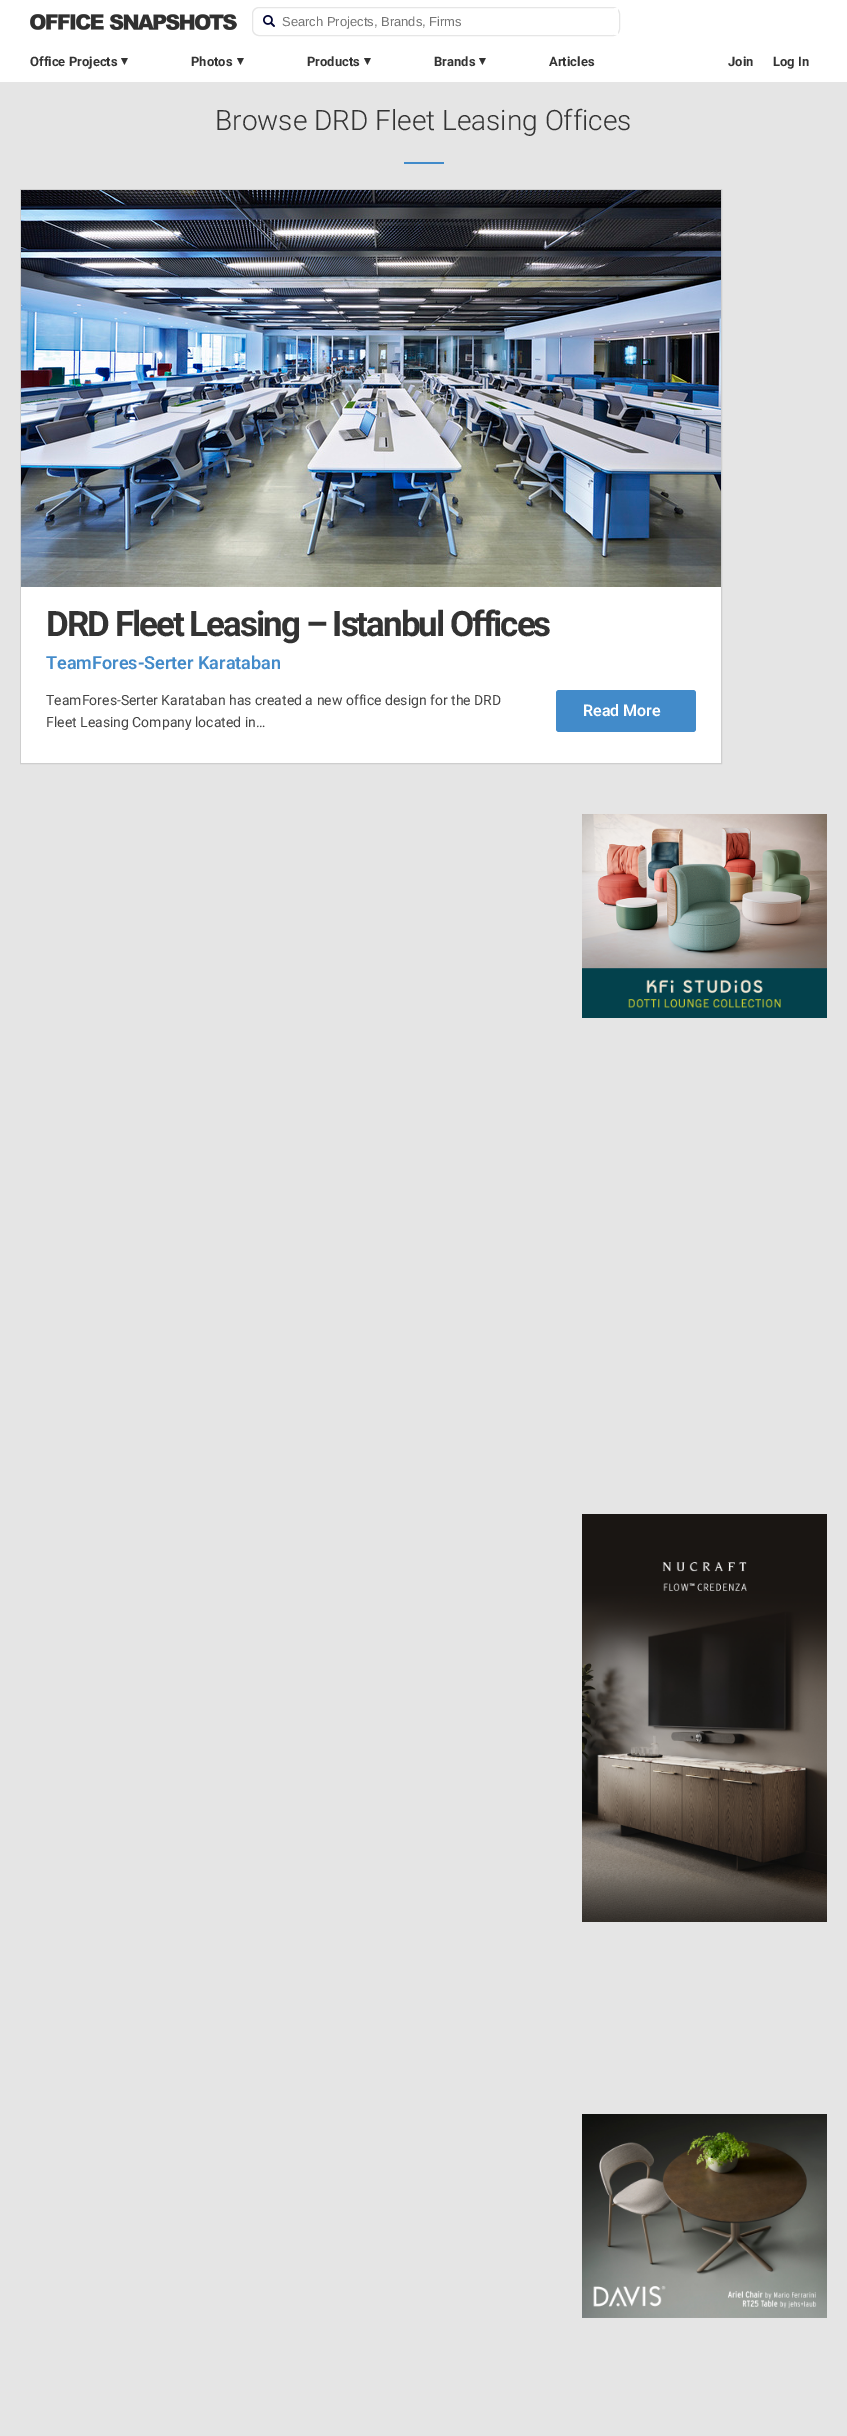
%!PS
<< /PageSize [847 2436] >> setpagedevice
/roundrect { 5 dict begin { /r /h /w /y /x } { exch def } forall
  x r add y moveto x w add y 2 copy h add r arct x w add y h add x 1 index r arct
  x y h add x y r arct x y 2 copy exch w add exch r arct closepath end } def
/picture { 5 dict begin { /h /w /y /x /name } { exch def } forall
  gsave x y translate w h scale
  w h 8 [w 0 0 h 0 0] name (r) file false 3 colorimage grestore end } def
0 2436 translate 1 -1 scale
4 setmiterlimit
0.898 setgray
0 0 847 2436 rectfill
1 setgray
0 0 847 82 rectfill
(img1.rgb) 30 14 207 16 picture
0.902 setgray
252.5 7.5 367 28 6.5 roundrect stroke
(img2.rgb) 263 15 12 12 picture
1 setgray
614 8 4 27 rectfill
/LiberationSans-Regular [13 0 0 -13 0 0] selectfont
0.459 setgray
282 26 moveto (Search Projects, Brands, Firms) show
/Roboto-Bold [13 0 0 -13 0 0] selectfont
0.2 setgray
30 66 moveto (Office Projects) show
/DejaVuSans-Bold [13 0 0 -13 0 0] selectfont
121 65 moveto (▾) show
/Roboto-Bold [13 0 0 -13 0 0] selectfont
191 66 moveto (Photos) show
/DejaVuSans-Bold [13 0 0 -13 0 0] selectfont
237 65 moveto (▾) show
/Roboto-Bold [13 0 0 -13 0 0] selectfont
307 66 moveto (Products) show
/DejaVuSans-Bold [13 0 0 -13 0 0] selectfont
364 65 moveto (▾) show
/Roboto-Bold [13 0 0 -13 0 0] selectfont
434 66 moveto (Brands) show
/DejaVuSans-Bold [13 0 0 -13 0 0] selectfont
479 65 moveto (▾) show
/Roboto-Bold [13 0 0 -13 0 0] selectfont
549 66 moveto (Articles) show
728 66 moveto (Join) show
773 66 moveto (Log In) show
/Roboto-Light [28 0 0 -28 0 0] selectfont
215 130 moveto (Browse DRD Fleet Leasing Offices) show
0.255 0.545 0.792 setrgbcolor
404 162 40 2 rectfill
0.808 setgray
20.5 189.5 701 574 rectstroke
(img3.rgb) 21 190 700 397 picture
1 setgray
21 587 700 176 rectfill
/Roboto-Bold [35 0 0 -35 0 0] selectfont
0.2 setgray
46 636 moveto -2 0 (DRD Fleet Leasing – Istanbul Offices) ashow
/Roboto-SemiBold [18 0 0 -18 0 0] selectfont
0.263 0.545 0.792 setrgbcolor
46 669 moveto (TeamFores-Serter Karataban) show
/Roboto-Regular [14 0 0 -14 0 0] selectfont
0.267 setgray
46 705 moveto (TeamFores-Serter Karataban has created a new office design for the DRD) show
46 727 moveto (Fleet Leasing Company located in…) show
0.259 0.545 0.792 setrgbcolor
556 690 140 42 3 roundrect fill
/Roboto-SemiBold [16 0 0 -16 0 0] selectfont
1 setgray
583 716 moveto (Read More) show
(img4.rgb) 582 814 245 204 picture
(img5.rgb) 582 1514 245 408 picture
(img6.rgb) 582 2114 245 204 picture
showpage
